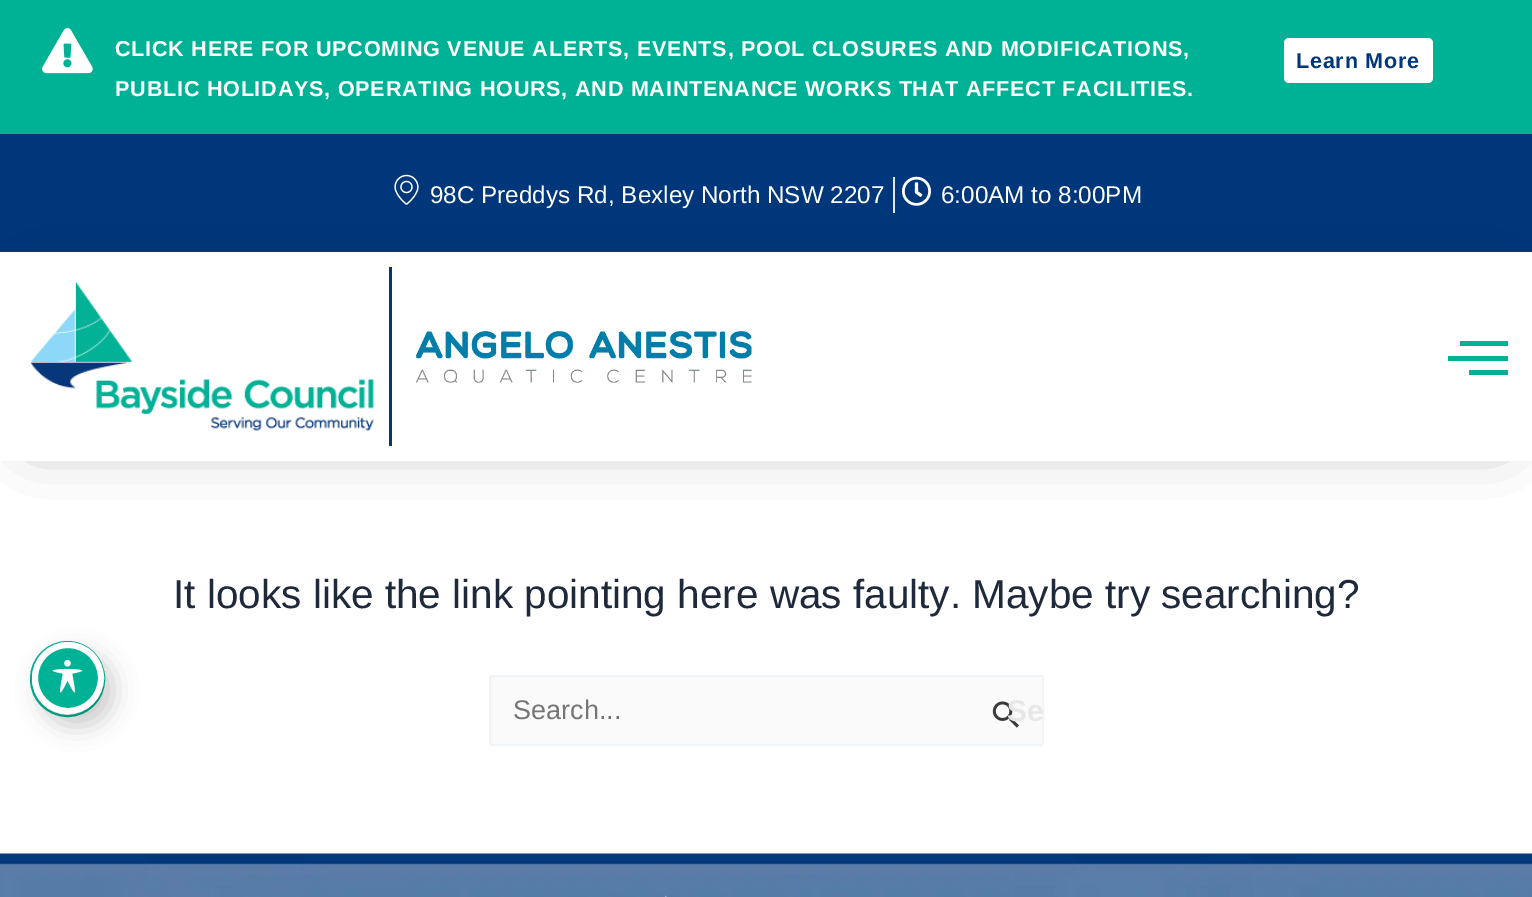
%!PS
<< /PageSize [1532 897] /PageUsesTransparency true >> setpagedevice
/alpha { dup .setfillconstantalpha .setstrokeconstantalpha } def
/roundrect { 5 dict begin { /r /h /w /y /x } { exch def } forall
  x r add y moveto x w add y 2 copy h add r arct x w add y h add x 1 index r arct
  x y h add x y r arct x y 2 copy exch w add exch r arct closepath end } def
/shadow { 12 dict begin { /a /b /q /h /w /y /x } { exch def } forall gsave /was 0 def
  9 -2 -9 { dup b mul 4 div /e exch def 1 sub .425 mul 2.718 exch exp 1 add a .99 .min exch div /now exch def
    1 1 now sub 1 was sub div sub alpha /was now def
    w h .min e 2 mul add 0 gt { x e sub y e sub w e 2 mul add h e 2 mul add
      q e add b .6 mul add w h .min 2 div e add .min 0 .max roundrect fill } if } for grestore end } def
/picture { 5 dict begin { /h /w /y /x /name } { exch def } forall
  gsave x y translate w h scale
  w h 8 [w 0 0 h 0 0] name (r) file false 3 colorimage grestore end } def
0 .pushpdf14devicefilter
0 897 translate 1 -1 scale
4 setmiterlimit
1 setgray
0 0 1532 897 rectfill
0 0.698 0.584 setrgbcolor
2 setlinewidth
31 642 73 74 36.5 roundrect stroke
0 setgray
41 654 72 72 36 12 0.2 shadow
0 0.698 0.584 setrgbcolor
newpath 68 678 33 0 360 arc closepath gsave fill grestore
1 setgray
6 setlinewidth
stroke
(img1.rgb) 52 659 31 34 picture
0 0.698 0.584 setrgbcolor
0 0 1532 134 rectfill
(img2.rgb) 42 28 51 46 picture
/LiberationSans-Bold [21.6 0 0 -21.6 0 0] selectfont
1 setgray
115 56 moveto 0.75 0 (CLICK HERE FOR UPCOMING VENUE ALERTS, EVENTS, POOL CLOSURES AND MODIFICATIONS,) ashow
115 96 moveto 0.75 0 (PUBLIC HOLIDAYS, OPERATING HOURS, AND MAINTENANCE WORKS THAT AFFECT FACILITIES.) ashow
1284 38 149 45 5 roundrect fill
0 0.216 0.478 setrgbcolor
1296 68 moveto 0.75 0 (Learn More) ashow
0 134 1532 118 rectfill
(img3.rgb) 394 174 25 31 picture
/LiberationSans-Regular [24.25 0 0 -24.25 0 0] selectfont
1 setgray
430 203 moveto (98C Preddys Rd, Bexley North NSW 2207) show
0.902 0.906 0.925 setrgbcolor
893 177 2 36 rectfill
(img4.rgb) 902 176 29 30 picture
1 setgray
941 203 moveto (6:00AM to 8:00PM) show
0 setgray
35 293 1464 139 0 30 0.5 shadow
1 setgray
0 252 1532 209 rectfill
0 0.216 0.478 setrgbcolor
389 267 3 179 rectfill
(img5.rgb) 30 282 344 149 picture
(img6.rgb) 416 331 336 52 picture
0 0.698 0.584 setrgbcolor
newpath 1448 361 moveto 1508 361 lineto 1508 356 lineto 1448 356 lineto closepath 1469 375 moveto 1508 375 lineto 1508 370 lineto 1469 370 lineto closepath 1460 341 moveto 1460 346 lineto 1508 346 lineto 1508 341 lineto closepath fill
/LiberationSans-Regular [40.5 0 0 -40.5 0 0] selectfont
0.118 0.161 0.231 setrgbcolor
173 608 moveto (It looks like the link pointing here was faulty. Maybe try searching?) show
0.98 setgray
490 676 553 69 2 roundrect gsave fill grestore
0.949 0.961 0.969 setrgbcolor
2 setlinewidth
stroke
/LiberationSans-Regular [27 0 0 -27 0 0] selectfont
0.459 setgray
513 719 moveto (Search...) show
(img7.rgb) 992 701 27 27 picture
/LiberationSans-Bold [30 0 0 -30 0 0] selectfont
0.906 setgray
1007 721 moveto (Se) show
(img8.rgb) 0 853 1532 44 picture
(img9.rgb) 665 895 2 2 picture
.poppdf14devicefilter showpage
